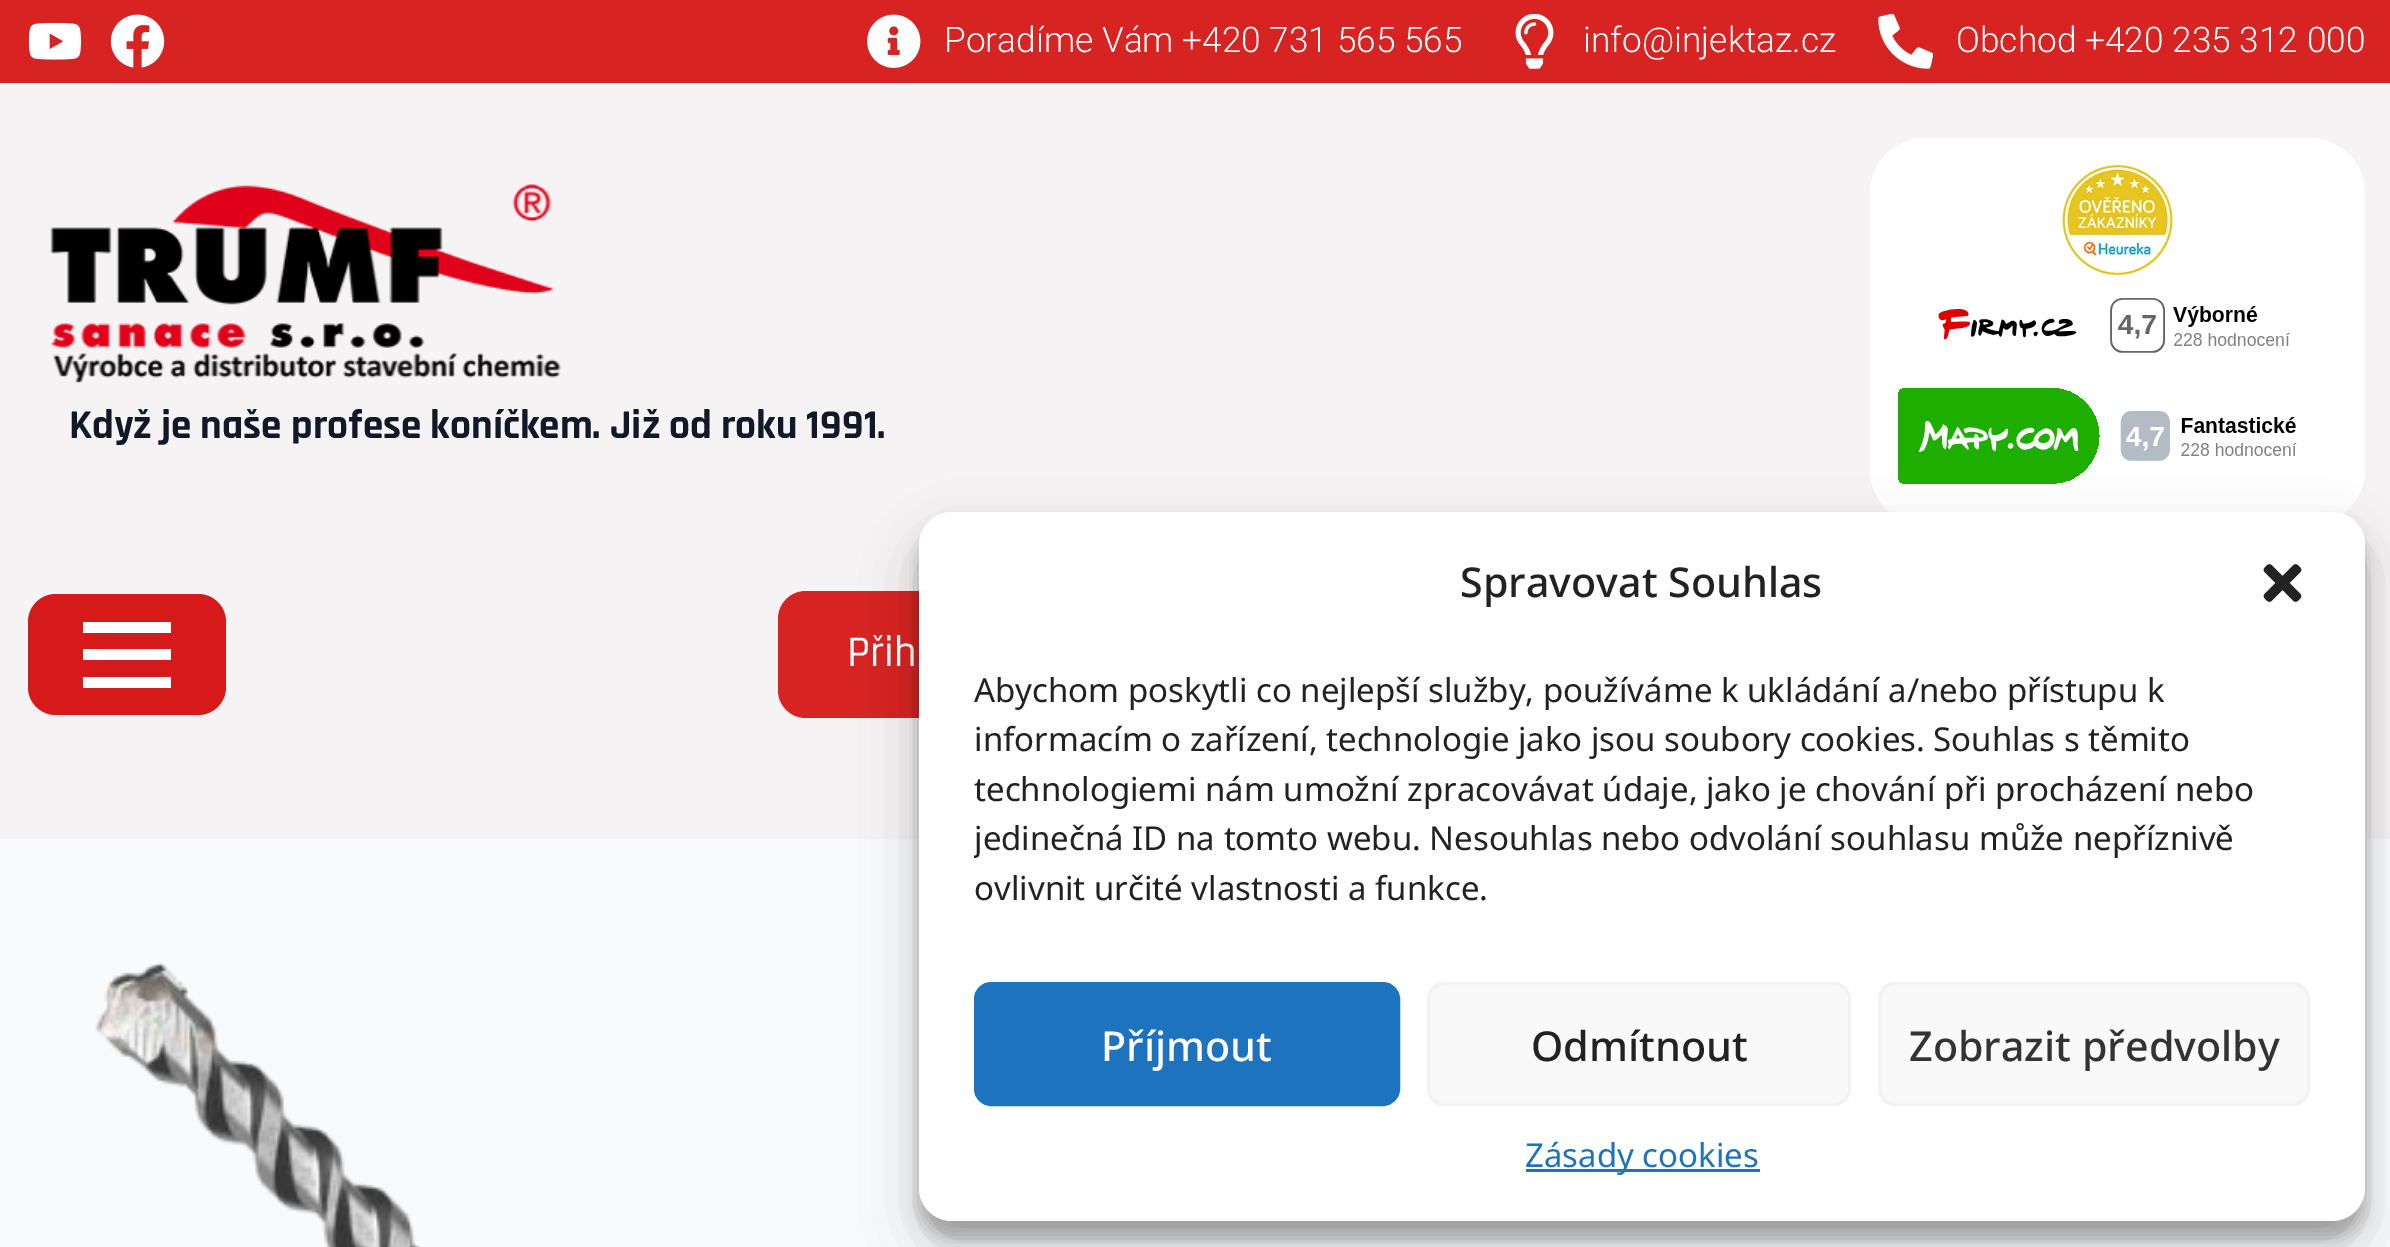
%!PS
<< /PageSize [2390 1247] /PageUsesTransparency true >> setpagedevice
/alpha { dup .setfillconstantalpha .setstrokeconstantalpha } def
/roundrect { 5 dict begin { /r /h /w /y /x } { exch def } forall
  x r add y moveto x w add y 2 copy h add r arct x w add y h add x 1 index r arct
  x y h add x y r arct x y 2 copy exch w add exch r arct closepath end } def
/shadow { 12 dict begin { /a /b /q /h /w /y /x } { exch def } forall gsave /was 0 def
  9 -2 -9 { dup b mul 4 div /e exch def 1 sub .425 mul 2.718 exch exp 1 add a .99 .min exch div /now exch def
    1 1 now sub 1 was sub div sub alpha /was now def
    w h .min e 2 mul add 0 gt { x e sub y e sub w e 2 mul add h e 2 mul add
      q e add b .6 mul add w h .min 2 div e add .min 0 .max roundrect fill } if } for grestore end } def
/picture { 5 dict begin { /h /w /y /x /name } { exch def } forall
  gsave x y translate w h scale
  w h 8 [w 0 0 h 0 0] name (r) file false 3 colorimage grestore end } def
0 .pushpdf14devicefilter
0 1247 translate 1 -1 scale
4 setmiterlimit
0.976 0.98 0.984 setrgbcolor
0 0 2390 1247 rectfill
0.961 0.953 0.953 setrgbcolor
0 83 2390 756 rectfill
0.847 0.137 0.137 setrgbcolor
0 0 2390 83 rectfill
(img1.rgb) 28 22 54 38 picture
(img2.rgb) 110 14 55 54 picture
(img3.rgb) 867 14 54 54 picture
/Roboto-Light [35.25 0 0 -35.25 0 0] selectfont
1 setgray
944 52 moveto (Poradíme Vám +420 731 565 565) show
(img4.rgb) 1515 14 39 55 picture
1583 52 moveto (info@injektaz.cz) show
(img5.rgb) 1878 14 55 55 picture
1956 52 moveto (Obchod +420 235 312 000) show
(img6.rgb) 50 184 511 199 picture
/Rajdhani-Bold [41.25 0 0 -41.25 0 0] selectfont
0.067 0.094 0.153 setrgbcolor
69 438 moveto (Když je naše profese koníčkem. Již od roku 1991.) show
1 setgray
1870 138 495 387 55 roundrect fill
(img7.rgb) 2062 165 111 110 picture
(img8.rgb) 1938 298 352 55 picture
(img9.rgb) 1898 388 399 96 picture
0.839 0.098 0.098 setrgbcolor
28 594 198 121 28 roundrect fill
1 setgray
83 677 88 11 rectfill
83 622 88 11 rectfill
83 649 88 11 rectfill
0.847 0.137 0.137 setrgbcolor
778 591 713 127 28 roundrect fill
/Rajdhani-Medium [44 0 0 -44 0 0] selectfont
1 setgray
847 666 moveto (Přih) show
(img10.rgb) 95 962 325 285 picture
0 setgray
919 528 1446 710 33 8 0.23 shadow
919 539 1446 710 33 27.5 0.19 shadow
1 setgray
919 512 1446 709 33 roundrect fill
/NotoSans-Medium [41.25 0 0 -41.25 0 0] selectfont
0.133 setgray
1460 597 moveto (Spravovat Souhlas) show
(img11.rgb) 2263 564 39 38 picture
/NotoSans-Regular [33 0 0 -33 0 0] selectfont
974 702 moveto (Abychom poskytli co nejlepší služby, používáme k ukládání a/nebo přístupu k) show
974 751 moveto (informacím o zařízení, technologie jako jsou soubory cookies. Souhlas s těmito) show
974 801 moveto (technologiemi nám umožní zpracovávat údaje, jako je chování při procházení nebo) show
gsave
974 666 1336 261 rectclip
974 850 moveto (jedinečná ID na tomto webu. Nesouhlas nebo odvolání souhlasu může nepříznivě) show
grestore
974 900 moveto (ovlivnit určité vlastnosti a funkce.) show
0.118 0.451 0.745 setrgbcolor
975.5 983.5 423 121 15.5 roundrect gsave fill grestore
3 setlinewidth
stroke
/NotoSans-Medium [41.25 0 0 -41.25 0 0] selectfont
1 setgray
1101 1061 moveto (Příjmout) show
0.976 setgray
1428.5 983.5 421 121 15.5 roundrect gsave fill grestore
0.949 setgray
stroke
0.133 setgray
1531 1061 moveto (Odmítnout) show
0.976 setgray
1879.5 983.5 429 121 15.5 roundrect gsave fill grestore
0.949 setgray
stroke
0.2 setgray
1909 1061 moveto (Zobrazit předvolby) show
0.118 0.451 0.745 setrgbcolor
1526 1169 234 3 rectfill
/NotoSans-Regular [33 0 0 -33 0 0] selectfont
1525 1167 moveto (Zásady cookies) show
.poppdf14devicefilter showpage
